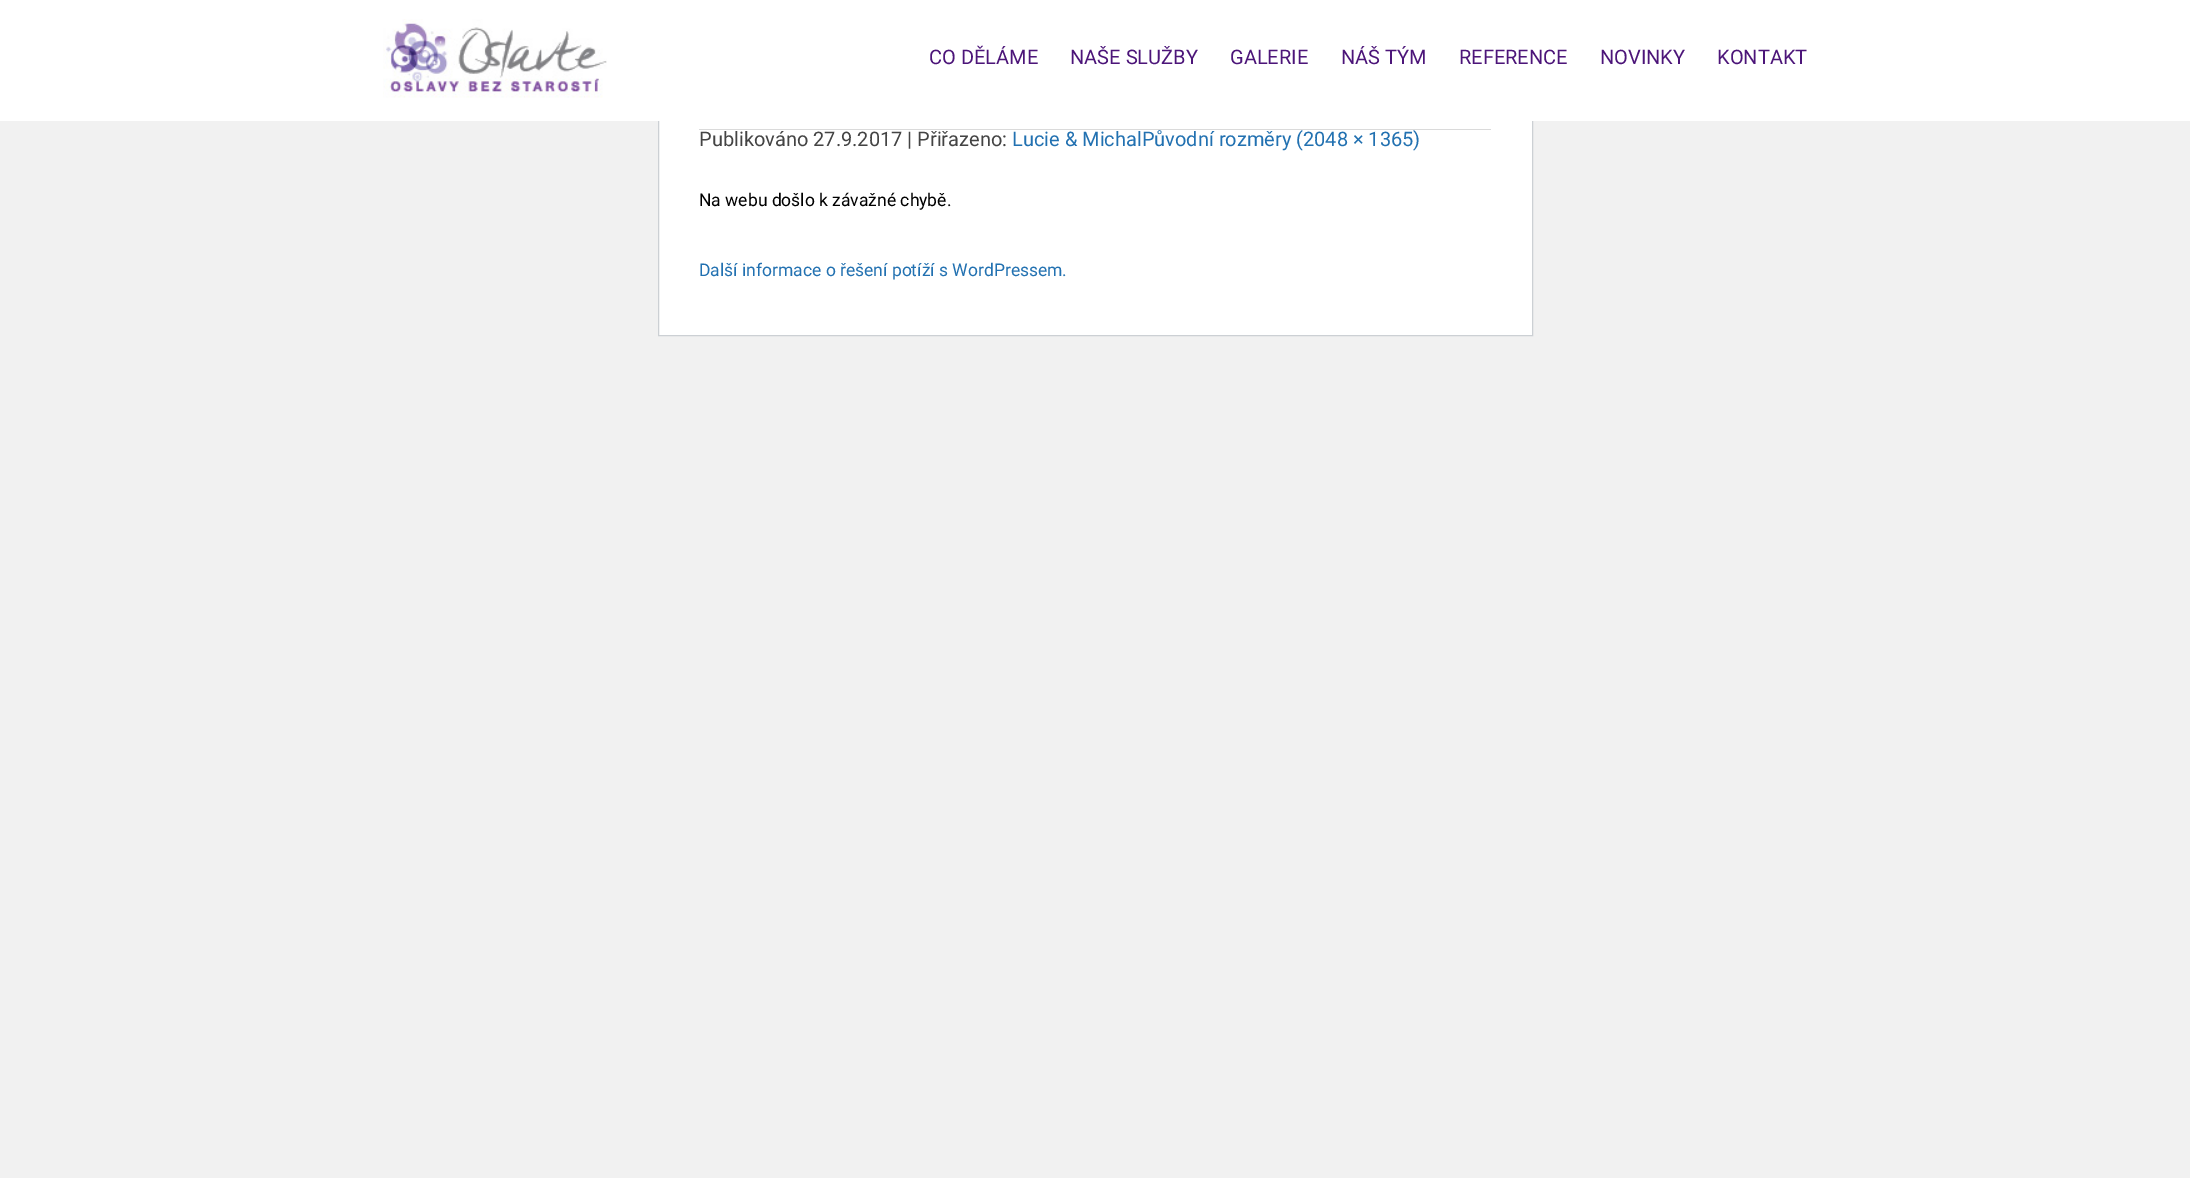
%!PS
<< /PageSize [2190 1178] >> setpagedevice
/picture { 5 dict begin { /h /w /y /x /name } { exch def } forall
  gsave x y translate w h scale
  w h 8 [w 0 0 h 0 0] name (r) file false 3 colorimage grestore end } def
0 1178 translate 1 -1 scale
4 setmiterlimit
0.945 setgray
0 0 2190 1178 rectfill
1 setgray
659 121 873 214 rectfill
0.8 0.816 0.831 setrgbcolor
658.5 63.5 874 272 rectstroke
1 setgray
0 0 2190 121 rectfill
(img1.rgb) 383 19 224 79 picture
/Roboto-Regular [20 0 0 -20 0 0] selectfont
0.298 0.082 0.475 setrgbcolor
929 64 moveto (CO DĚLÁME) show
1070 64 moveto (NAŠE SLUŽBY) show
1230 64 moveto (GALERIE) show
1341 64 moveto (NÁŠ TÝM) show
1459 64 moveto (REFERENCE) show
1600 64 moveto (NOVINKY) show
1717 64 moveto (KONTAKT) show
0.855 setgray
699 129 792 1 rectfill
0.267 setgray
699 146 moveto (Publikováno 27.9.2017 | Přiřazeno:) show
0.133 0.443 0.694 setrgbcolor
1012 146 moveto (Lucie & MichalPůvodní rozměry \(2048 × 1365\)) show
/Roboto-Regular [17.5 0 0 -17.5 0 0] selectfont
0 setgray
699 206 moveto (Na webu došlo k závažné chybě.) show
0.133 0.443 0.694 setrgbcolor
699 276 moveto (Další informace o řešení potíží s WordPressem.) show
showpage
